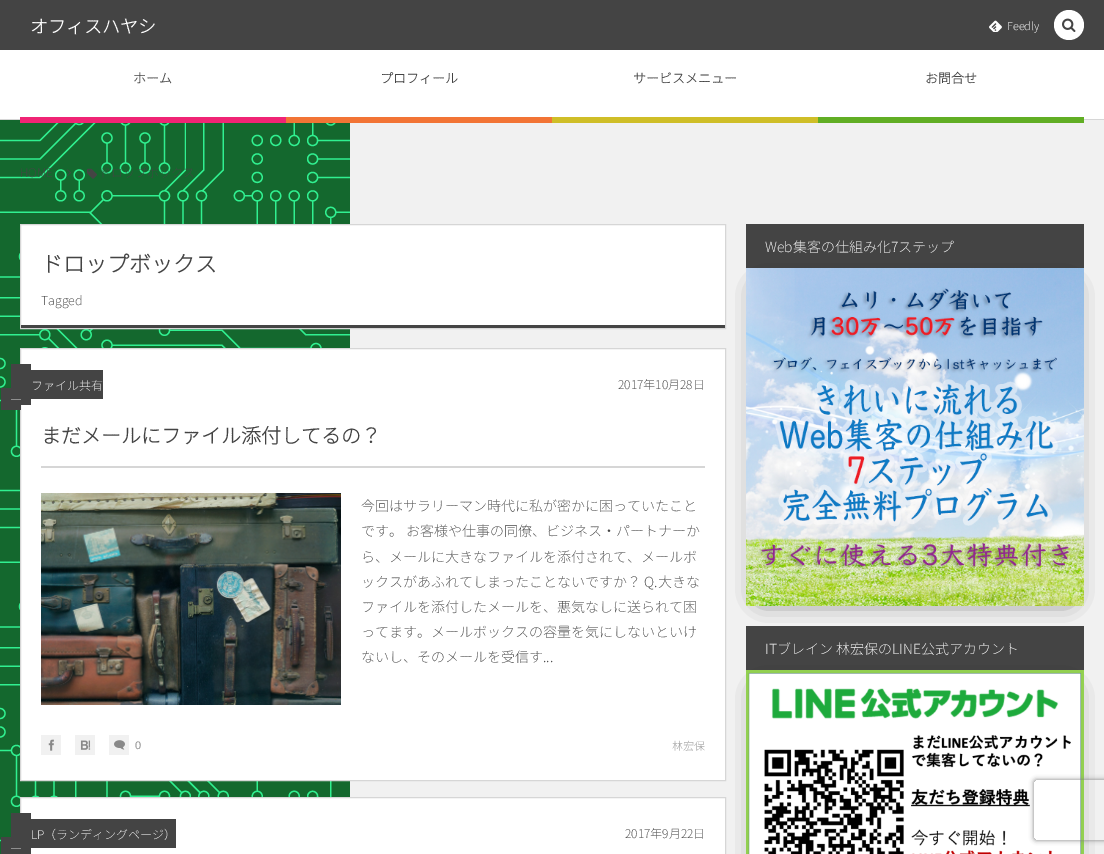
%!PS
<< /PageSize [1104 854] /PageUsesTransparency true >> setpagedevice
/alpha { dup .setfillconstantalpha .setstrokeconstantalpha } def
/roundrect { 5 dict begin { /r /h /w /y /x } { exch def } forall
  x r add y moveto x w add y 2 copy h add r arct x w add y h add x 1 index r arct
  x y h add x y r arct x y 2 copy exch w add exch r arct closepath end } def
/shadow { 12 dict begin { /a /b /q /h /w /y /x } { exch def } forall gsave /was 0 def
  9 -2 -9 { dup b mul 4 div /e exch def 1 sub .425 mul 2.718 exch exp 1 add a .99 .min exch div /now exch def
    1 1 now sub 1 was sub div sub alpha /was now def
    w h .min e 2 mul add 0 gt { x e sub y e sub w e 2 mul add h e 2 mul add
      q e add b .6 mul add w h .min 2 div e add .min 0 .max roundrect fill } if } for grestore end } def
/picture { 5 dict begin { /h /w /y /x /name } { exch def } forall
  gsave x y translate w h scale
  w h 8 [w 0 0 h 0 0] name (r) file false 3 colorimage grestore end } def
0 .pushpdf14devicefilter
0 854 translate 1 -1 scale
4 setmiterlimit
0.945 setgray
0 0 1104 854 rectfill
1 setgray
0 50 1104 69 rectfill
0.267 setgray
0 0 1104 50 rectfill
/NotoSansJP-Bold [18 0 0 -18 0 0] selectfont
1 setgray
30 33 moveto (オフィスハヤシ) show
(img1.rgb) 989 20 13 12 picture
/NotoSansJP-Thin [11 0 0 -11 0 0] selectfont
1007 30 moveto (Feedly) show
/NotoSansJP-Bold [13 0 0 -13 0 0] selectfont
0.267 setgray
133 83 moveto (ホーム) show
0.839 setgray
0 119 1104 1 rectfill
(img2.rgb) 0 120 350 734 picture
0.941 0.141 0.459 setrgbcolor
20 117 266 6 rectfill
0.267 setgray
380 83 moveto (プロフィール) show
0.949 0.455 0.208 setrgbcolor
286 117 266 6 rectfill
0.267 setgray
633 83 moveto (サービスメニュー) show
0.812 0.745 0.153 setrgbcolor
552 117 266 6 rectfill
0.267 setgray
925 83 moveto (お問合せ) show
0.38 0.682 0.141 setrgbcolor
818 117 266 6 rectfill
/NotoSansJP-Thin [12 0 0 -12 0 0] selectfont
0.267 setgray
20 177 moveto (HOME) show
(img3.rgb) 67 169 4 7 picture
(img4.rgb) 87 168 10 11 picture
99 177 moveto (ドロップボックス) show
1 setgray
21 225 704 100 rectfill
0.839 setgray
20.5 224.5 705 104 rectstroke
/NotoSansJP-Bold [22 0 0 -22 0 0] selectfont
0.267 setgray
41 272 moveto (ドロップボックス) show
/NotoSansJP-Thin [12.5 0 0 -12.5 0 0] selectfont
41 305 moveto (Tagged) show
21 325 704 3 rectfill
1 setgray
newpath 20.5 348.5 moveto 725.5 348.5 lineto 725.5 780.5 lineto 20.5 780.5 lineto closepath gsave fill grestore
0.839 setgray
stroke
0.267 setgray
1 388 20 22 rectfill
31 370 72 29 rectfill
11 364 20 41 rectfill
/NotoSansJP-Thin [12 0 0 -12 0 0] selectfont
1 setgray
31 390 moveto (ファイル共有) show
0.561 setgray
11 399 10 1 rectfill
0.267 setgray
618 389 moveto (2017年10月28日) show
0.839 setgray
41 466 664 2 rectfill
/NotoSansJP-Bold [20 0 0 -20 0 0] selectfont
0.267 setgray
41 443 moveto (まだメールにファイル添付してるの？) show
(img5.rgb) 41 493 300 212 picture
/NotoSansJP-Thin [14 0 0 -14 0 0] selectfont
361 511 moveto (今回はサラリーマン時代に私が密かに困っていたこと) show
361 536 moveto (です。 お客様や仕事の同僚、ビジネス・パートナーか) show
361 562 moveto (ら、メールに大きなファイルを添付されて、メールボ) show
361 587 moveto (ックスがあふれてしまったことないですか？ Q.大きな) show
361 612 moveto (ファイルを添付したメールを、悪気なしに送られて困) show
361 637 moveto (ってます。メールボックスの容量を気にしないといけ) show
361 662 moveto (ないし、そのメールを受信す...) show
0.945 setgray
41 735 20 20 rectfill
(img6.rgb) 48 739 6 12 picture
75 735 20 20 rectfill
(img7.rgb) 80 740 11 10 picture
109 735 20 20 rectfill
(img8.rgb) 114 740 11 10 picture
/LiberationSans-Regular [11 0 0 -11 0 0] selectfont
0.561 setgray
135 749 moveto (0) show
/NotoSansJP-Thin [11 0 0 -11 0 0] selectfont
672 750 moveto (林宏保) show
1 setgray
newpath 20.5 797.5 moveto 725.5 797.5 lineto 725.5 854.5 lineto 20.5 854.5 lineto closepath gsave fill grestore
0.839 setgray
stroke
0.267 setgray
1 837 10 17 rectfill
31 819 145 29 rectfill
11 813 20 41 rectfill
/NotoSansJP-Thin [12 0 0 -12 0 0] selectfont
1 setgray
31 839 moveto (LP（ランディングページ）) show
0.561 setgray
11 848 10 1 rectfill
0.267 setgray
625 838 moveto (2017年9月22日) show
746 224 338 44 rectfill
/NotoSansJP-Thin [14 0 0 -14 0 0] selectfont
1 setgray
765 252 moveto (Web集客の仕組み化7ステップ) show
0 setgray
762 290 306 306 0 12 1 shadow
(img9.rgb) 746 268 338 338 picture
0.267 setgray
746 626 338 44 rectfill
1 setgray
765 654 moveto (ITブレイン 林宏保のLINE公式アカウント) show
0 setgray
762 692 306 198 0 12 1 shadow
(img10.rgb) 746 670 338 184 picture
1 setgray
newpath 1069 25 15 0 360 arc closepath fill
(img11.rgb) 1062 18 14 14 picture
gsave
newpath 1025 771 moveto 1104 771 lineto 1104 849 lineto 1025 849 lineto closepath 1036 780 moveto 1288 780 lineto 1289 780 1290 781 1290 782 curveto 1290 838 lineto 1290 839 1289 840 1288 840 curveto 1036 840 lineto 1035 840 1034 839 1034 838 curveto 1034 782 lineto 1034 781 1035 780 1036 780 curveto closepath eoclip newpath
0.502 setgray
1034 780 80 60 2 2.5 1 shadow
grestore
.poppdf14devicefilter showpage
